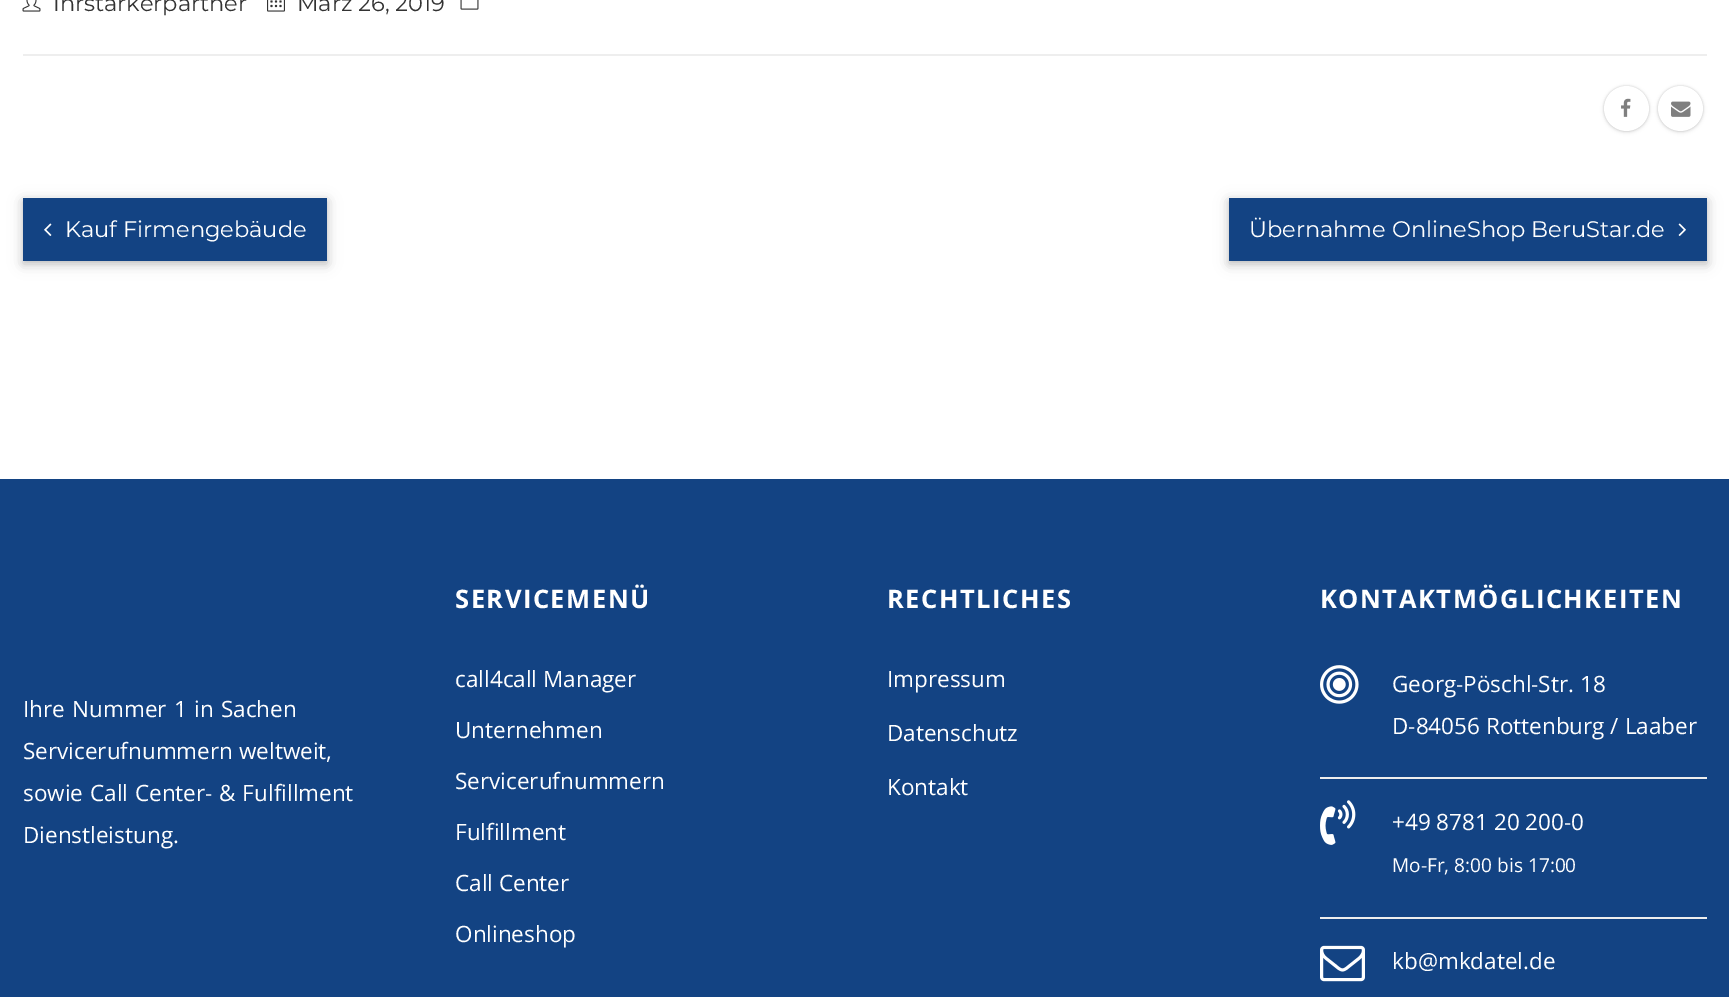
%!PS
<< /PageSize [1729 997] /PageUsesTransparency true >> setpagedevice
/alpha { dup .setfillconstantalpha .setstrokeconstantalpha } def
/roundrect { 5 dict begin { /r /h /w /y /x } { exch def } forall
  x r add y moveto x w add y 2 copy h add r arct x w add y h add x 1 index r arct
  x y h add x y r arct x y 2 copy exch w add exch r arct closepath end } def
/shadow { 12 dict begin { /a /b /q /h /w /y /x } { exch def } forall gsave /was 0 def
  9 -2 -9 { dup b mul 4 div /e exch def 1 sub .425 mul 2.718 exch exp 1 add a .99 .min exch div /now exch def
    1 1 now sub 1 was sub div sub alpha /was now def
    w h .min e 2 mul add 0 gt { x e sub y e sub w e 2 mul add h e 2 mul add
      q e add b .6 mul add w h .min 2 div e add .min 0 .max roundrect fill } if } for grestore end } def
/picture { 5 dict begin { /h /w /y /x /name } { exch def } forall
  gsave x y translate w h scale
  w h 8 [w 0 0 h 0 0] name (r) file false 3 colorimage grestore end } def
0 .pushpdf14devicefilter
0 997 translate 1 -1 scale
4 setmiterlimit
1 setgray
0 0 1729 997 rectfill
(img1.rgb) 22 0 19 12 picture
/Montserrat-Thin [22.5 0 0 -22.5 0 0] selectfont
0.2 setgray
53 11 moveto (Ihrstarkerpartner) show
(img2.rgb) 267 0 18 12 picture
297 11 moveto (März 26, 2019) show
(img3.rgb) 460 0 19 10 picture
0.933 setgray
23 54 1684 2 rectfill
0 setgray
1604 87 45 45 22.5 2 0.12 shadow
1604 86 45 45 22.5 1 0.16 shadow
1 setgray
newpath 1626.5 108.5 22.5 0 360 arc closepath fill
(img4.rgb) 1621 98 10 19 picture
0 setgray
1658 87 45 45 22.5 2 0.12 shadow
1658 86 45 45 22.5 1 0.16 shadow
1 setgray
newpath 1680.5 108.5 22.5 0 360 arc closepath fill
(img5.rgb) 1671 101 20 16 picture
0 setgray
23 201 304 63 0 7.5 0.12 shadow
23 201 304 63 0 4 0.16 shadow
0.075 0.263 0.514 setrgbcolor
23 198 304 63 rectfill
(img6.rgb) 44 223 8 13 picture
1 setgray
65 237 moveto (Kauf Firmengebäude) show
0 setgray
1229 201 478 63 0 7.5 0.12 shadow
1229 201 478 63 0 4 0.16 shadow
0.075 0.263 0.514 setrgbcolor
1229 198 478 63 rectfill
1 setgray
1249 237 moveto (Übernahme OnlineShop BeruStar.de) show
(img7.rgb) 1678 223 8 13 picture
0.075 0.263 0.514 setrgbcolor
0 479 1729 518 rectfill
/OpenSans-Regular [22.5 0 0 -22.5 0 0] selectfont
1 setgray
23 717 moveto 1.5 0 32 (Ihre Nummer 1 in Sachen) widthshow
23 759 moveto (Servicerufnummern weltweit,) show
23 801 moveto 1 0 32 (sowie Call Center- & Fulfillment) widthshow
23 843 moveto (Dienstleistung.) show
/OpenSans-Bold [25.5 0 0 -25.5 0 0] selectfont
455 608 moveto 1.5 0 (SERVICEMENÜ) ashow
/OpenSans-Regular [22.5 0 0 -22.5 0 0] selectfont
455 687 moveto (call4call Manager) show
455 738 moveto (Unternehmen) show
455 789 moveto (Servicerufnummern) show
455 840 moveto (Fulfillment) show
455 891 moveto (Call Center) show
455 942 moveto (Onlineshop) show
/OpenSans-Bold [25.5 0 0 -25.5 0 0] selectfont
887 608 moveto 1.5 0 (RECHTLICHES) ashow
/OpenSans-Regular [22.5 0 0 -22.5 0 0] selectfont
887 687 moveto (Impressum) show
887 741 moveto (Datenschutz) show
887 795 moveto (Kontakt) show
/OpenSans-Bold [25.5 0 0 -25.5 0 0] selectfont
1320 608 moveto 1.5 0 (KONTAKTMÖGLICHKEITEN) ashow
(img8.rgb) 1320 665 39 39 picture
/OpenSans-Regular [22.5 0 0 -22.5 0 0] selectfont
1392 692 moveto (Georg-Pöschl-Str. 18) show
1392 734 moveto (D-84056 Rottenburg / Laaber) show
0.933 setgray
1320 777 387 2 rectfill
(img9.rgb) 1320 800 36 45 picture
1 setgray
1392 830 moveto (+49 8781 20 200-0) show
/OpenSans-Regular [19.1 0 0 -19.1 0 0] selectfont
1392 872 moveto (Mo-Fr, 8:00 bis 17:00) show
0.933 setgray
1320 917 387 2 rectfill
(img10.rgb) 1320 945 45 37 picture
/OpenSans-Regular [22.5 0 0 -22.5 0 0] selectfont
1 setgray
1392 969 moveto (kb@mkdatel.de) show
.poppdf14devicefilter showpage
